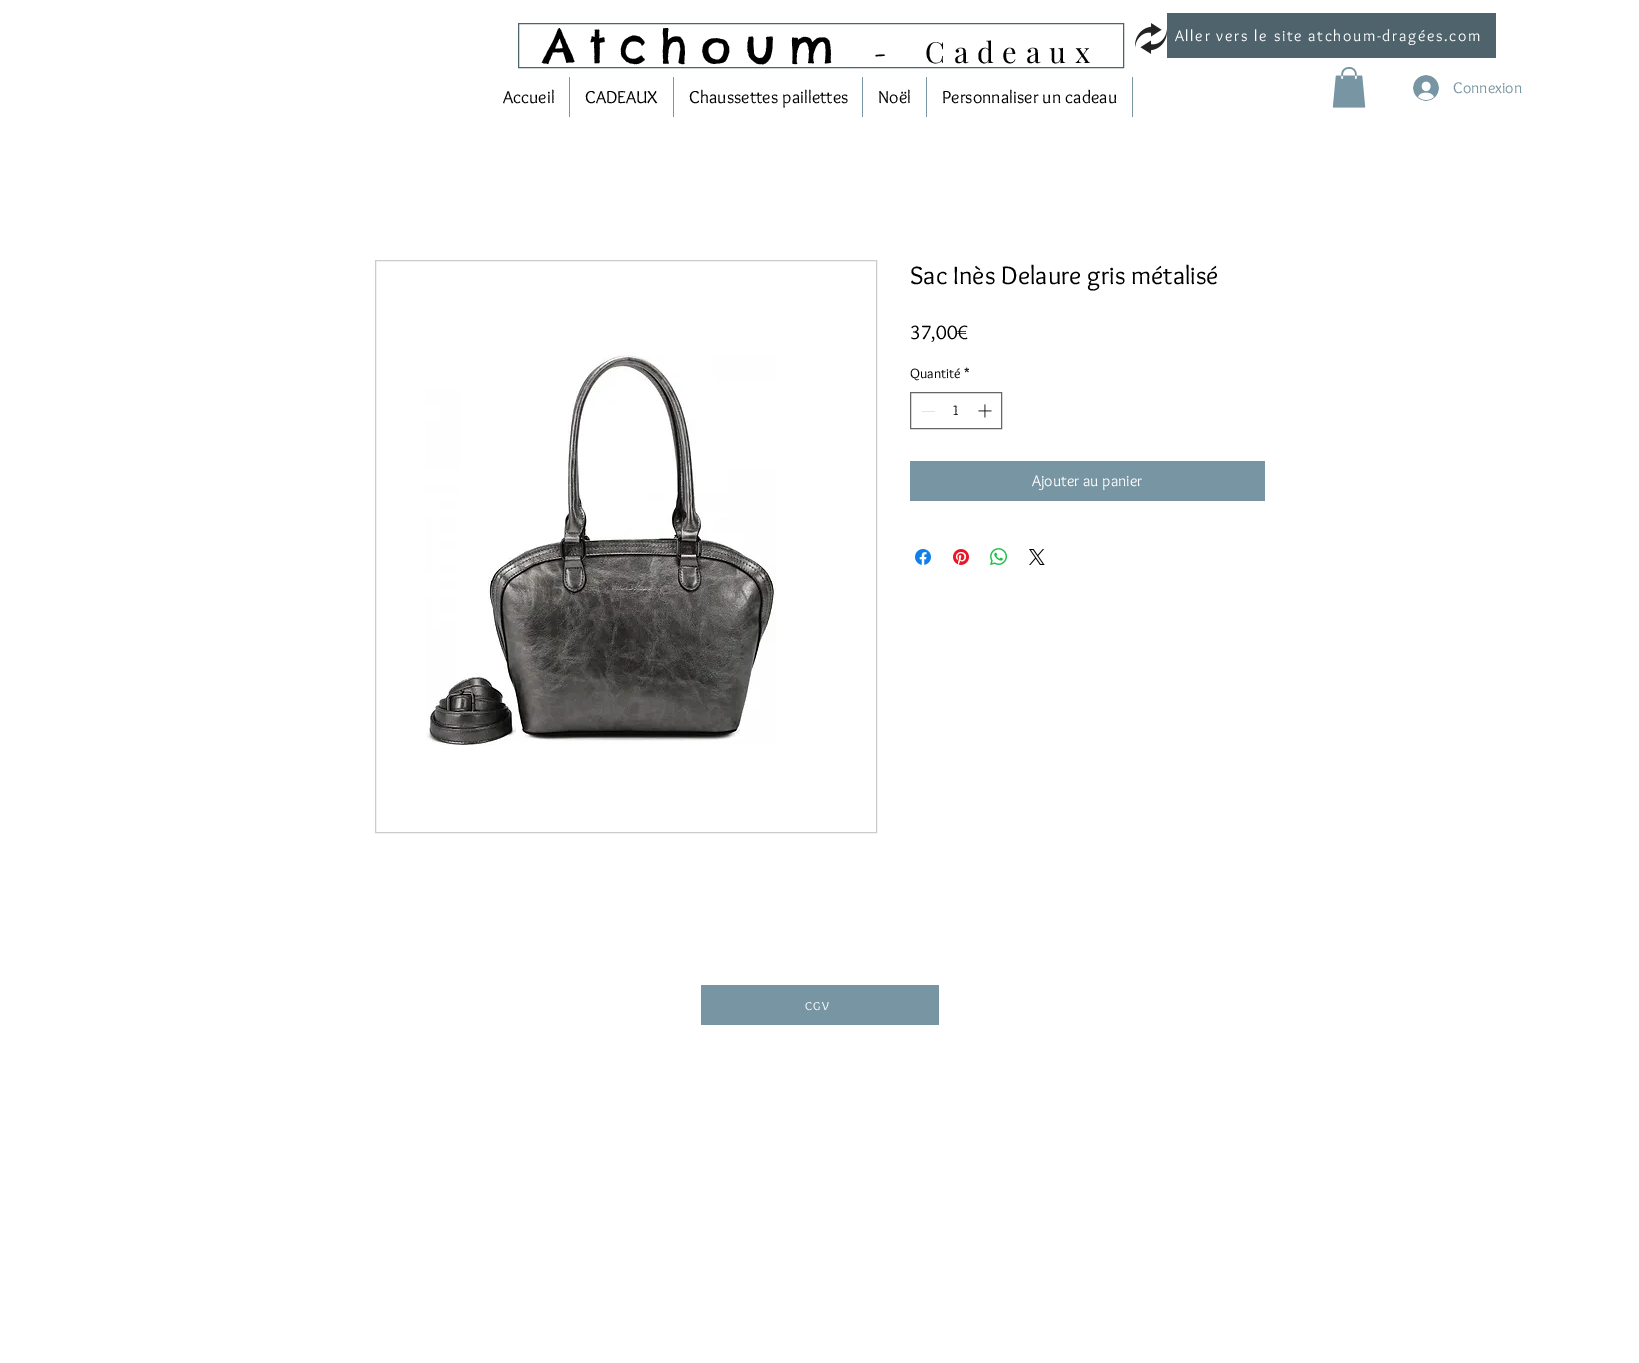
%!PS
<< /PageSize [1639 1363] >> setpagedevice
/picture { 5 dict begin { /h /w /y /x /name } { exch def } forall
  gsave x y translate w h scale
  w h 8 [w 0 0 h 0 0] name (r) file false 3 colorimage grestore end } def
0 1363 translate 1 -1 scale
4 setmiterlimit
1 setgray
0 0 1639 1363 rectfill
0.31 0.388 0.427 setrgbcolor
518.5 23.5 605 44 rectstroke
(img1.rgb) 1135 23 32 31 picture
/ChelseaMarket-Regular [46 0 0 -46 0 0] selectfont
0 setgray
543 63 moveto 13.75 0 (Atchoum) ashow
/Sacramento-Regular [46 0 0 -46 0 0] selectfont
870 63 moveto 13.75 0 (-) ashow
/PlayfairDisplay-Regular [29 0 0 -29 0 0] selectfont
925 63 moveto 8.75 0 (Cadeaux) ashow
0.31 0.388 0.427 setrgbcolor
1167 13 329 45 rectfill
/Overlock-Regular [16 0 0 -16 0 0] selectfont
1 setgray
1175 41 moveto 1.6 0 (Aller vers le site atchoum-dragées.com) ashow
/Overlock-Regular [18 0 0 -18 0 0] selectfont
0 setgray
503 103 moveto (Accueil) show
0.467 0.584 0.639 setrgbcolor
569 77 1 40 rectfill
0 setgray
585 103 moveto (CADEAUX) show
0.467 0.584 0.639 setrgbcolor
673 77 1 40 rectfill
0 setgray
689 103 moveto (Chaussettes paillettes) show
0.467 0.584 0.639 setrgbcolor
862 77 1 40 rectfill
0 setgray
878 103 moveto (Noël) show
0.467 0.584 0.639 setrgbcolor
926 77 1 40 rectfill
0 setgray
942 103 moveto (Personnaliser un cadeau) show
0.467 0.584 0.639 setrgbcolor
1132 77 1 40 rectfill
(img2.rgb) 1332 67 34 41 picture
(img3.rgb) 1413 75 26 26 picture
/Overlock-Regular [16 0 0 -16 0 0] selectfont
1453 93 moveto (Connexion) show
0.8 setgray
375.5 260.5 501 572 rectstroke
(img4.rgb) 426 354 350 391 picture
/Overlock-Regular [26 0 0 -26 0 0] selectfont
0 setgray
910 284 moveto (Sac Inès Delaure gris métalisé) show
/Overlock-Regular [20 0 0 -20 0 0] selectfont
910 339 moveto (37,00€) show
/Overlock-Regular [14 0 0 -14 0 0] selectfont
910 378 moveto (Quantité) show
964 378 moveto (*) show
0.4 setgray
910.5 392.5 91 36 rectstroke
0.89 setgray
922 411 13 1 rectfill
0 setgray
952 415 moveto (1) show
(img5.rgb) 978 404 14 14 picture
0.467 0.584 0.639 setrgbcolor
910 461 355 40 rectfill
/Overlock-Regular [16 0 0 -16 0 0] selectfont
1 setgray
1032 486 moveto (Ajouter au panier) show
(img6.rgb) 915 549 16 16 picture
(img7.rgb) 953 549 16 16 picture
(img8.rgb) 990 548 17 17 picture
(img9.rgb) 1029 549 16 16 picture
0.467 0.584 0.639 setrgbcolor
701 985 238 40 rectfill
/Overlock-Regular [12 0 0 -12 0 0] selectfont
1 setgray
805 1010 moveto 1 0 (CGV) ashow
showpage
